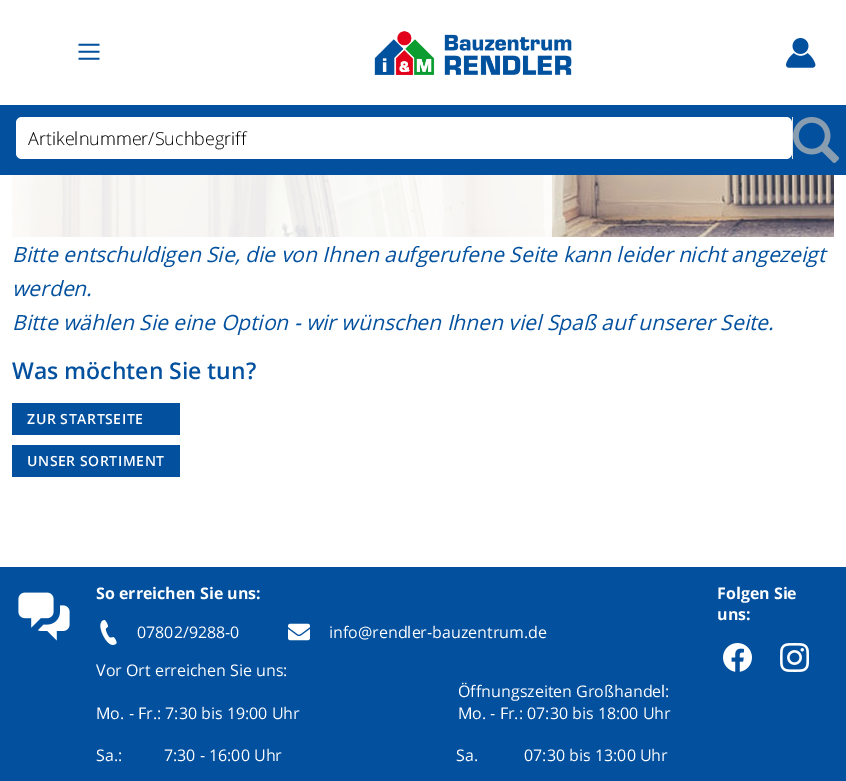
%!PS
<< /PageSize [846 781] /PageUsesTransparency true >> setpagedevice
/alpha { dup .setfillconstantalpha .setstrokeconstantalpha } def
/roundrect { 5 dict begin { /r /h /w /y /x } { exch def } forall
  x r add y moveto x w add y 2 copy h add r arct x w add y h add x 1 index r arct
  x y h add x y r arct x y 2 copy exch w add exch r arct closepath end } def
/picture { 5 dict begin { /h /w /y /x /name } { exch def } forall
  gsave x y translate w h scale
  w h 8 [w 0 0 h 0 0] name (r) file false 3 colorimage grestore end } def
0 .pushpdf14devicefilter
0 781 translate 1 -1 scale
4 setmiterlimit
1 setgray
0 0 846 781 rectfill
(img1.rgb) 78 43 22 17 picture
(img2.rgb) 374 31 198 44 picture
(img3.rgb) 786 38 30 30 picture
0.008 0.314 0.62 setrgbcolor
0 105 846 70 rectfill
1 setgray
16 117 776 42 6 roundrect fill
/OpenSans-Light [18 0 0 -18 0 0] selectfont
0 setgray
28 145 moveto (Artikelnummer/Suchbegriff) show
0.898 setgray
792 117 1 42 rectfill
(img4.rgb) 793 117 46 46 picture
(img5.rgb) 12 175 822 62 picture
0.85 alpha
1 setgray
12 175 540 62 rectfill
/OpenSans-Italic [21 0 0 -21 0 0] selectfont
1 alpha
0.008 0.314 0.62 setrgbcolor
12 262 moveto (Bitte entschuldigen Sie, die von Ihnen aufgerufene Seite kann leider nicht angezeigt) show
12 296 moveto (werden.) show
12 330 moveto (Bitte wählen Sie eine Option - wir wünschen Ihnen viel Spaß auf unserer Seite.) show
/OpenSans-SemiBold [23 0 0 -23 0 0] selectfont
12 379 moveto (Was möchten Sie tun?) show
12 403 168 32 rectfill
/OpenSans-SemiBold [14 0 0 -14 0 0] selectfont
1 setgray
27 424 moveto 0.6 0 (ZUR STARTSEITE) ashow
0.008 0.314 0.62 setrgbcolor
12 445 168 32 rectfill
1 setgray
27 466 moveto 0.6 0 (UNSER SORTIMENT) ashow
0.008 0.314 0.62 setrgbcolor
0 567 846 214 rectfill
(img6.rgb) 18 592 52 49 picture
/OpenSans-Bold [16 0 0 -16 0 0] selectfont
1 setgray
96 599 moveto (So erreichen Sie uns:) show
(img7.rgb) 100 620 17 25 picture
/OpenSans-Regular [16 0 0 -16 0 0] selectfont
137 638 moveto (07802/9288-0) show
(img8.rgb) 288 623 22 18 picture
329 638 moveto (info@rendler-bauzentrum.de) show
96 676 moveto (Vor Ort erreichen Sie uns:) show
458 697 moveto (Öffnungszeiten Großhandel:) show
96 719 moveto (Mo. - Fr.: 7:30 bis 19:00 Uhr                                      Mo. - Fr.: 07:30 bis 18:00 Uhr) show
96 761 moveto (Sa.:          7:30 - 16:00 Uhr                                          Sa.           07:30 bis 13:00 Uhr) show
/OpenSans-Bold [16 0 0 -16 0 0] selectfont
717 599 moveto (Folgen Sie) show
717 620 moveto (uns:) show
(img9.rgb) 723 643 29 29 picture
(img10.rgb) 780 643 29 29 picture
.poppdf14devicefilter showpage
